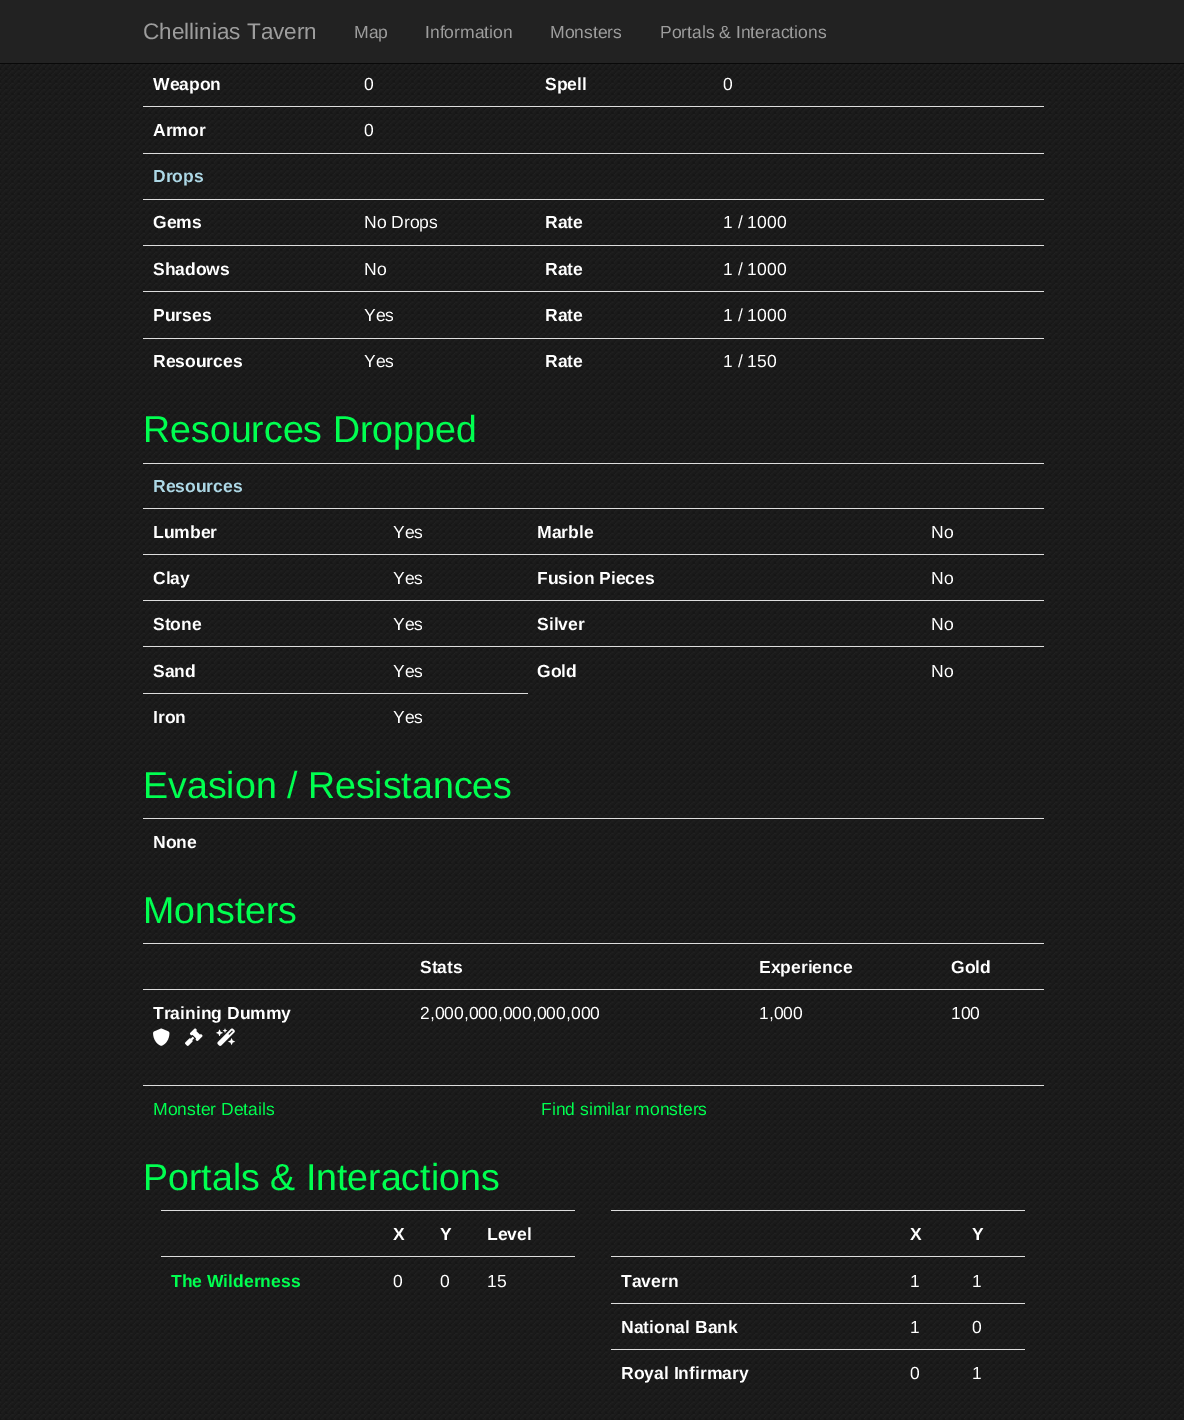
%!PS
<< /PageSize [1184 1420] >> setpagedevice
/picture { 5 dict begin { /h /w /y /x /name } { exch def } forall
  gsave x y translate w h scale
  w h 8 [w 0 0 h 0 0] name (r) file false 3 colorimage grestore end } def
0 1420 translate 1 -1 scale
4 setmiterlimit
1 setgray
0 0 1184 1420 rectfill
(img1.rgb) 0 64 1184 1356 picture
0.133 setgray
0 0 1184 63 rectfill
0.031 setgray
0 63 1184 1 rectfill
/LiberationSans-Regular [22.5 0 0 -22.5 0 0] selectfont
0.616 setgray
143 39 moveto (Chellinias Tavern) show
/LiberationSans-Regular [17.5 0 0 -17.5 0 0] selectfont
354 38 moveto (Map) show
425 38 moveto (Information) show
550 38 moveto (Monsters) show
660 38 moveto (Portals & Interactions) show
/LiberationSans-Bold [17.5 0 0 -17.5 0 0] selectfont
1 setgray
153 90 moveto (Weapon) show
/LiberationSans-Regular [17.5 0 0 -17.5 0 0] selectfont
364 90 moveto (0) show
/LiberationSans-Bold [17.5 0 0 -17.5 0 0] selectfont
545 90 moveto (Spell) show
/LiberationSans-Regular [17.5 0 0 -17.5 0 0] selectfont
723 90 moveto (0) show
0.867 setgray
143 106 901 1 rectfill
/LiberationSans-Bold [17.5 0 0 -17.5 0 0] selectfont
1 setgray
153 136 moveto (Armor) show
/LiberationSans-Regular [17.5 0 0 -17.5 0 0] selectfont
364 136 moveto (0) show
0.867 setgray
143 153 901 1 rectfill
/LiberationSans-Bold [17.5 0 0 -17.5 0 0] selectfont
0.678 0.847 0.902 setrgbcolor
153 182 moveto (Drops) show
1 setgray
153 228 moveto (Gems) show
/LiberationSans-Regular [17.5 0 0 -17.5 0 0] selectfont
364 228 moveto (No Drops) show
/LiberationSans-Bold [17.5 0 0 -17.5 0 0] selectfont
545 228 moveto (Rate) show
0.867 setgray
143 199 901 1 rectfill
/LiberationSans-Regular [17.5 0 0 -17.5 0 0] selectfont
1 setgray
723 228 moveto (1 / 1000) show
/LiberationSans-Bold [17.5 0 0 -17.5 0 0] selectfont
153 275 moveto (Shadows) show
/LiberationSans-Regular [17.5 0 0 -17.5 0 0] selectfont
364 275 moveto (No) show
/LiberationSans-Bold [17.5 0 0 -17.5 0 0] selectfont
545 275 moveto (Rate) show
0.867 setgray
143 245 901 1 rectfill
/LiberationSans-Regular [17.5 0 0 -17.5 0 0] selectfont
1 setgray
723 275 moveto (1 / 1000) show
/LiberationSans-Bold [17.5 0 0 -17.5 0 0] selectfont
153 321 moveto (Purses) show
/LiberationSans-Regular [17.5 0 0 -17.5 0 0] selectfont
364 321 moveto (Yes) show
/LiberationSans-Bold [17.5 0 0 -17.5 0 0] selectfont
545 321 moveto (Rate) show
0.867 setgray
143 291 901 1 rectfill
/LiberationSans-Regular [17.5 0 0 -17.5 0 0] selectfont
1 setgray
723 321 moveto (1 / 1000) show
/LiberationSans-Bold [17.5 0 0 -17.5 0 0] selectfont
153 367 moveto (Resources) show
/LiberationSans-Regular [17.5 0 0 -17.5 0 0] selectfont
364 367 moveto (Yes) show
/LiberationSans-Bold [17.5 0 0 -17.5 0 0] selectfont
545 367 moveto (Rate) show
0.867 setgray
143 338 901 1 rectfill
/LiberationSans-Regular [17.5 0 0 -17.5 0 0] selectfont
1 setgray
723 367 moveto (1 / 150) show
/LiberationSans-Regular [37.5 0 0 -37.5 0 0] selectfont
0 1 0.314 setrgbcolor
143 442 moveto (Resources Dropped) show
0.867 setgray
143 463 901 1 rectfill
/LiberationSans-Bold [17.5 0 0 -17.5 0 0] selectfont
0.678 0.847 0.902 setrgbcolor
153 492 moveto (Resources) show
1 setgray
153 538 moveto (Lumber) show
/LiberationSans-Regular [17.5 0 0 -17.5 0 0] selectfont
393 538 moveto (Yes) show
/LiberationSans-Bold [17.5 0 0 -17.5 0 0] selectfont
537 538 moveto (Marble) show
0.867 setgray
143 508 901 1 rectfill
/LiberationSans-Regular [17.5 0 0 -17.5 0 0] selectfont
1 setgray
931 538 moveto (No) show
/LiberationSans-Bold [17.5 0 0 -17.5 0 0] selectfont
153 584 moveto (Clay) show
/LiberationSans-Regular [17.5 0 0 -17.5 0 0] selectfont
393 584 moveto (Yes) show
/LiberationSans-Bold [17.5 0 0 -17.5 0 0] selectfont
537 584 moveto (Fusion Pieces) show
0.867 setgray
143 554 901 1 rectfill
/LiberationSans-Regular [17.5 0 0 -17.5 0 0] selectfont
1 setgray
931 584 moveto (No) show
/LiberationSans-Bold [17.5 0 0 -17.5 0 0] selectfont
153 630 moveto (Stone) show
/LiberationSans-Regular [17.5 0 0 -17.5 0 0] selectfont
393 630 moveto (Yes) show
/LiberationSans-Bold [17.5 0 0 -17.5 0 0] selectfont
537 630 moveto (Silver) show
0.867 setgray
143 600 901 1 rectfill
/LiberationSans-Regular [17.5 0 0 -17.5 0 0] selectfont
1 setgray
931 630 moveto (No) show
/LiberationSans-Bold [17.5 0 0 -17.5 0 0] selectfont
153 677 moveto (Sand) show
/LiberationSans-Regular [17.5 0 0 -17.5 0 0] selectfont
393 677 moveto (Yes) show
/LiberationSans-Bold [17.5 0 0 -17.5 0 0] selectfont
537 677 moveto (Gold) show
0.867 setgray
143 646 901 1 rectfill
/LiberationSans-Regular [17.5 0 0 -17.5 0 0] selectfont
1 setgray
931 677 moveto (No) show
/LiberationSans-Bold [17.5 0 0 -17.5 0 0] selectfont
153 723 moveto (Iron) show
0.867 setgray
143 693 385 1 rectfill
/LiberationSans-Regular [17.5 0 0 -17.5 0 0] selectfont
1 setgray
393 723 moveto (Yes) show
/LiberationSans-Regular [37.5 0 0 -37.5 0 0] selectfont
0 1 0.314 setrgbcolor
143 798 moveto (Evasion / Resistances) show
0.867 setgray
143 818 901 1 rectfill
/LiberationSans-Bold [17.5 0 0 -17.5 0 0] selectfont
1 setgray
153 848 moveto (None) show
/LiberationSans-Regular [37.5 0 0 -37.5 0 0] selectfont
0 1 0.314 setrgbcolor
143 923 moveto (Monsters) show
/LiberationSans-Bold [17.5 0 0 -17.5 0 0] selectfont
1 setgray
420 973 moveto (Stats) show
759 973 moveto (Experience) show
0.867 setgray
143 943 901 1 rectfill
1 setgray
951 973 moveto (Gold) show
153 1019 moveto (Training Dummy) show
(img2.rgb) 153 1028 17 18 picture
(img3.rgb) 185 1028 18 18 picture
(img4.rgb) 216 1028 19 18 picture
/LiberationSans-Regular [17.5 0 0 -17.5 0 0] selectfont
420 1019 moveto (2,000,000,000,000,000) show
759 1019 moveto (1,000) show
0.867 setgray
143 989 901 1 rectfill
1 setgray
951 1019 moveto (100) show
0 1 0.314 setrgbcolor
153 1115 moveto (Monster Details) show
0.867 setgray
143 1085 901 1 rectfill
0 1 0.314 setrgbcolor
541 1115 moveto (Find similar monsters) show
/LiberationSans-Regular [37.5 0 0 -37.5 0 0] selectfont
143 1190 moveto (Portals & Interactions) show
/LiberationSans-Bold [17.5 0 0 -17.5 0 0] selectfont
1 setgray
393 1240 moveto (X) show
440 1240 moveto (Y) show
0.867 setgray
161 1210 414 1 rectfill
1 setgray
487 1240 moveto (Level) show
0 1 0.314 setrgbcolor
171 1287 moveto (The Wilderness) show
/LiberationSans-Regular [17.5 0 0 -17.5 0 0] selectfont
1 setgray
393 1287 moveto (0) show
440 1287 moveto (0) show
0.867 setgray
161 1256 414 1 rectfill
1 setgray
487 1287 moveto (15) show
/LiberationSans-Bold [17.5 0 0 -17.5 0 0] selectfont
910 1240 moveto (X) show
0.867 setgray
611 1210 414 1 rectfill
1 setgray
972 1240 moveto (Y) show
621 1287 moveto (Tavern) show
/LiberationSans-Regular [17.5 0 0 -17.5 0 0] selectfont
910 1287 moveto (1) show
0.867 setgray
611 1256 414 1 rectfill
1 setgray
972 1287 moveto (1) show
/LiberationSans-Bold [17.5 0 0 -17.5 0 0] selectfont
621 1333 moveto (National Bank) show
/LiberationSans-Regular [17.5 0 0 -17.5 0 0] selectfont
910 1333 moveto (1) show
0.867 setgray
611 1303 414 1 rectfill
1 setgray
972 1333 moveto (0) show
/LiberationSans-Bold [17.5 0 0 -17.5 0 0] selectfont
621 1379 moveto (Royal Infirmary) show
/LiberationSans-Regular [17.5 0 0 -17.5 0 0] selectfont
910 1379 moveto (0) show
0.867 setgray
611 1349 414 1 rectfill
1 setgray
972 1379 moveto (1) show
showpage
